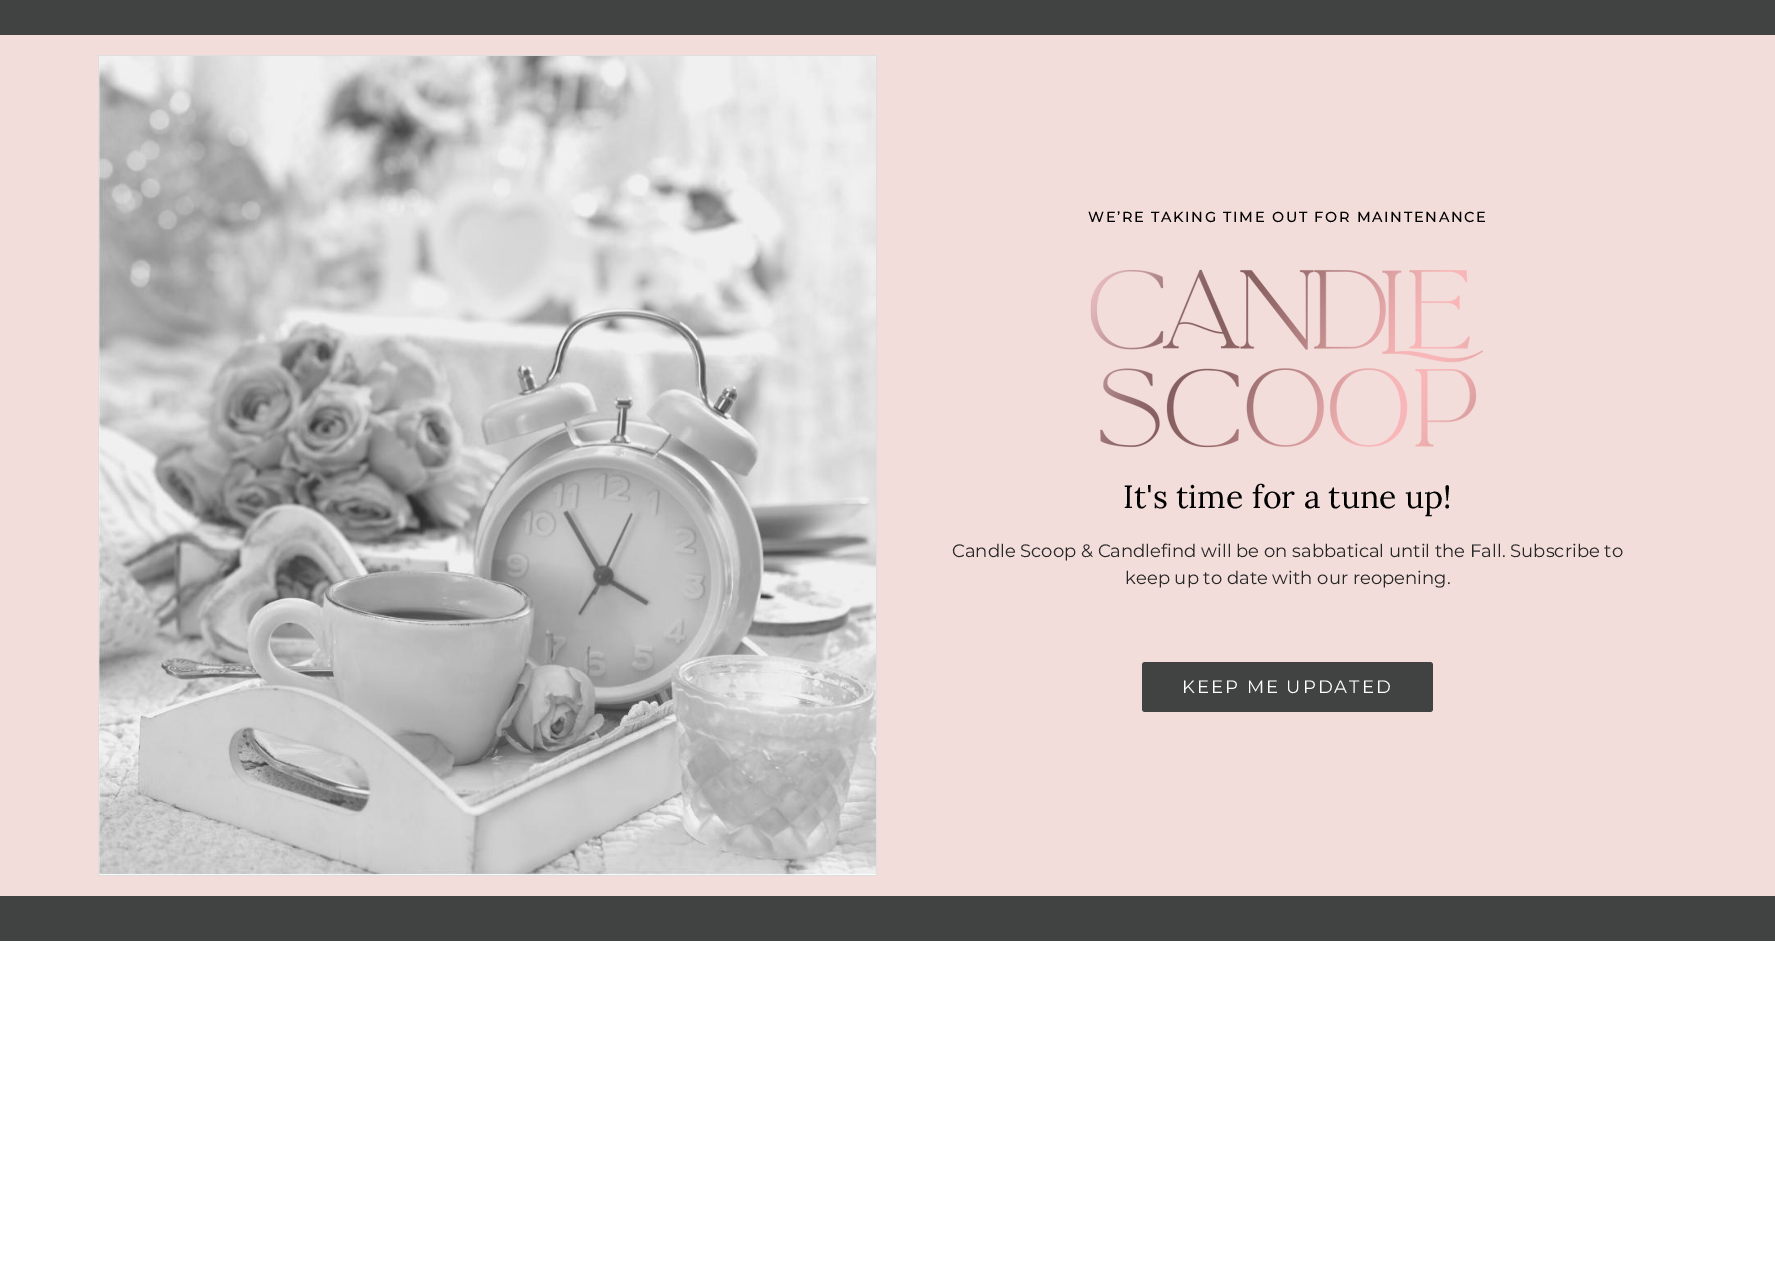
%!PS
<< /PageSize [1775 1265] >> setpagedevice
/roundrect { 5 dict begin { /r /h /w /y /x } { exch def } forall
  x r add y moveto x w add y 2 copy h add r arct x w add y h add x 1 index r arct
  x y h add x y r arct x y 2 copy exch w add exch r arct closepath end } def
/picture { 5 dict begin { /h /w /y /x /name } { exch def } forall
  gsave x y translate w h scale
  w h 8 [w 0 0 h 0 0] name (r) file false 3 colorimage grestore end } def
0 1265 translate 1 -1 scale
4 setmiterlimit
1 setgray
0 0 1775 1265 rectfill
0.953 0.867 0.855 setrgbcolor
0 35 1775 861 rectfill
0.255 0.259 0.259 setrgbcolor
0 0 1775 35 rectfill
0 896 1775 45 rectfill
0.871 setgray
98.5 55.5 778 820 rectstroke
(img1.rgb) 99 56 777 819 picture
/Montserrat-Bold [14 0 0 -14 0 0] selectfont
0 setgray
1088 222 moveto 2 0 (WE’RE TAKING TIME OUT FOR MAINTENANCE) ashow
(img2.rgb) 1090 269 393 179 picture
/Lora-Regular [32 0 0 -32 0 0] selectfont
1123 508 moveto (It's time for a tune up!) show
/Montserrat-Thin [18 0 0 -18 0 0] selectfont
0.153 setgray
952 557 moveto (Candle Scoop & Candlefind will be on sabbatical until the Fall. Subscribe to) show
1125 584 moveto (keep up to date with our reopening.) show
0.255 0.259 0.259 setrgbcolor
1142 662 291 50 3 roundrect fill
1 setgray
1182 693 moveto 2 0 (KEEP ME UPDATED) ashow
showpage
